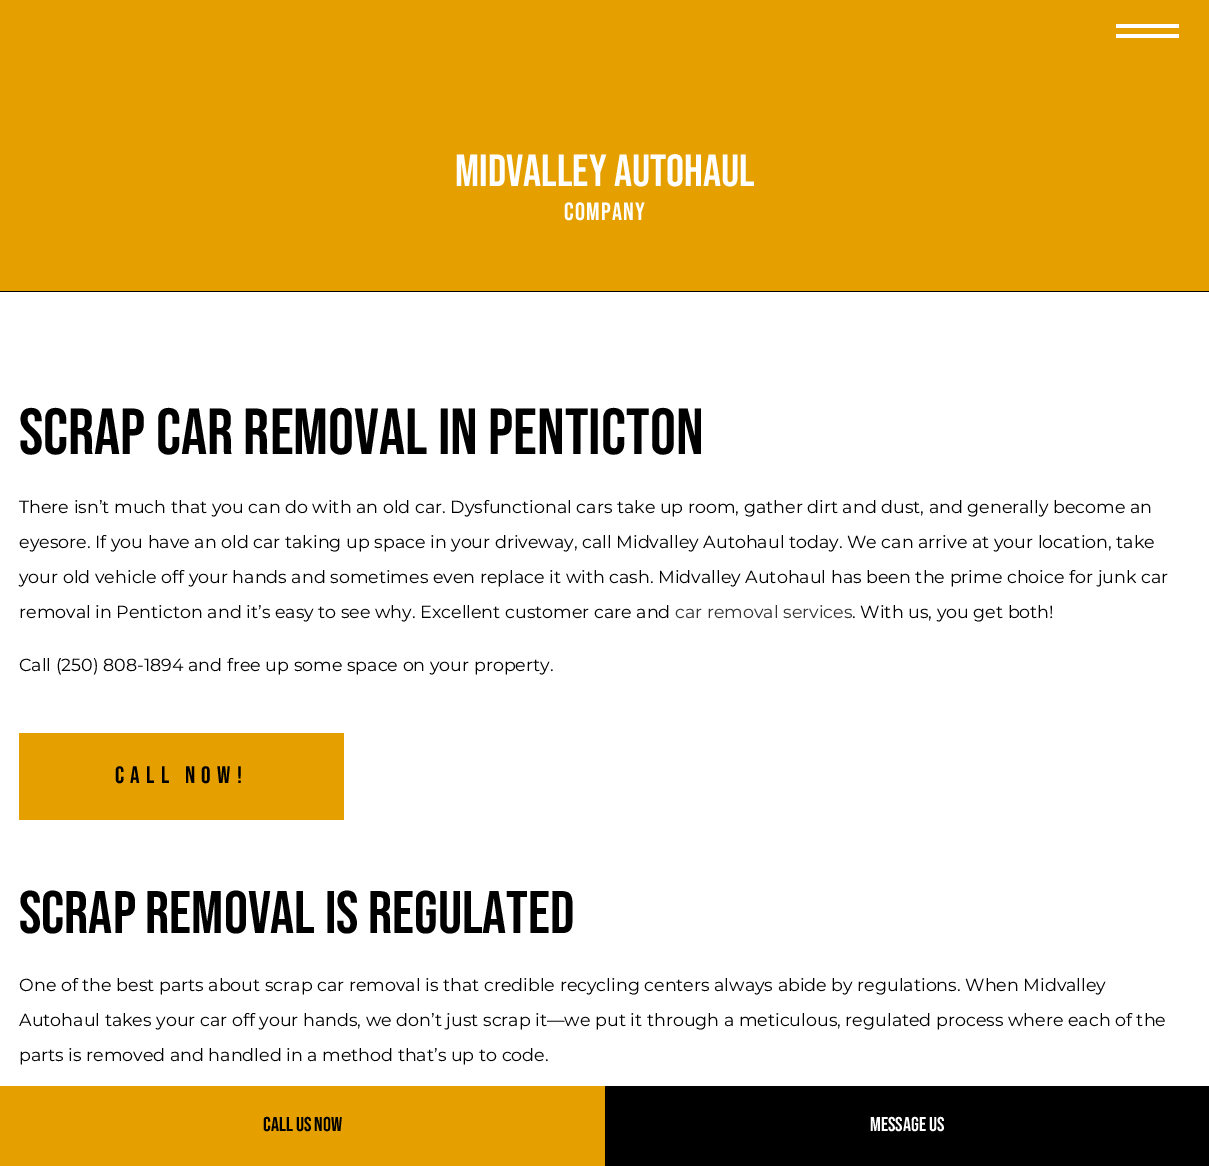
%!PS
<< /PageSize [1209 1166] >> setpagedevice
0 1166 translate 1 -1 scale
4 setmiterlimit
1 setgray
0 0 1209 1166 rectfill
0.898 0.627 0 setrgbcolor
0 0 1209 291 rectfill
1 setgray
1116 24 63 4 rectfill
1116 34 63 4 rectfill
/BebasNeue-Regular [45 0 0 -45 0 0] selectfont
455 186 moveto (Midvalley Autohaul) show
/BebasNeue-Regular [25 0 0 -25 0 0] selectfont
564 220 moveto 1.25 0 (Company) ashow
0.898 0.627 0 setrgbcolor
0 1086 605 80 rectfill
/BebasNeue-Regular [20 0 0 -20 0 0] selectfont
0 setgray
263 1131 moveto (Call Us Now) show
605 1086 604 80 rectfill
1 setgray
870 1131 moveto (Message Us) show
0 setgray
0 291 1209 1 rectfill
/BebasNeue-Regular [65 0 0 -65 0 0] selectfont
19 454 moveto (Scrap Car Removal in Penticton) show
/Montserrat-Thin [17.5 0 0 -17.5 0 0] selectfont
19 513 moveto (There isn’t much that you can do with an old car. Dysfunctional cars take up room, gather dirt and dust, and generally become an) show
19 548 moveto (eyesore. If you have an old car taking up space in your driveway, call Midvalley Autohaul today. We can arrive at your location, take) show
19 583 moveto (your old vehicle off your hands and sometimes even replace it with cash. Midvalley Autohaul has been the prime choice for junk car) show
19 618 moveto (removal in Penticton and it’s easy to see why. Excellent customer care and) show
0.2 setgray
675 618 moveto (car removal services) show
0 setgray
852 618 moveto (. With us, you get both!) show
19 671 moveto (Call \(250\) 808-1894 and free up some space on your property.) show
0.898 0.627 0 setrgbcolor
19 733 325 87 rectfill
/BebasNeue-Regular [23.75 0 0 -23.75 0 0] selectfont
0 setgray
115 783 moveto 6.25 0 (Call Now!) ashow
/BebasNeue-Regular [60 0 0 -60 0 0] selectfont
19 933 moveto (Scrap Removal Is Regulated) show
/Montserrat-Thin [17.5 0 0 -17.5 0 0] selectfont
19 991 moveto (One of the best parts about scrap car removal is that credible recycling centers always abide by regulations. When Midvalley) show
19 1026 moveto (Autohaul takes your car off your hands, we don’t just scrap it—we put it through a meticulous, regulated process where each of the) show
19 1061 moveto (parts is removed and handled in a method that’s up to code.) show
showpage
